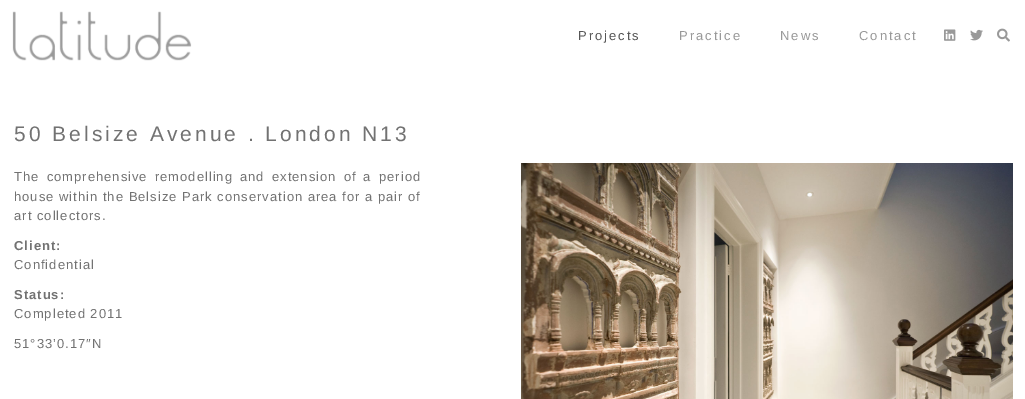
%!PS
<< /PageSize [1025 399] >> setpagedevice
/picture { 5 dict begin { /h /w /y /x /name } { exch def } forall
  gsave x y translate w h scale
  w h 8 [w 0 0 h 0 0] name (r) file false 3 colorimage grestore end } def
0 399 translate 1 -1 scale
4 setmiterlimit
1 setgray
0 0 1025 399 rectfill
(img1.rgb) 12 11 180 50 picture
/LiberationSans-Regular [13 0 0 -13 0 0] selectfont
0.337 setgray
578 40 moveto 2 0 (Projects) ashow
0.6 setgray
679 40 moveto 2 0 (Practice) ashow
780 40 moveto 2 0 (News) ashow
859 40 moveto 2 0 (Contact) ashow
(img2.rgb) 944 29 12 12 picture
(img3.rgb) 970 29 13 12 picture
(img4.rgb) 997 28 13 14 picture
/LiberationSans-Regular [21 0 0 -21 0 0] selectfont
0.447 setgray
14 141 moveto 3 0 (50 Belsize Avenue . London N13) ashow
/LiberationSans-Regular [13 0 0 -13 0 0] selectfont
14 181 moveto 2.5 0 32 1 0 (The comprehensive remodelling and extension of a period) awidthshow
14 201 moveto 1 0 (house within the Belsize Park conservation area for a pair of) ashow
14 220 moveto 1 0 (art collectors.) ashow
/LiberationSans-Bold [13 0 0 -13 0 0] selectfont
14 250 moveto 1 0 (Client:) ashow
/LiberationSans-Regular [13 0 0 -13 0 0] selectfont
14 269 moveto 1 0 (Confidential) ashow
/LiberationSans-Bold [13 0 0 -13 0 0] selectfont
14 299 moveto 1 0 (Status:) ashow
/LiberationSans-Regular [13 0 0 -13 0 0] selectfont
14 318 moveto 1 0 (Completed 2011) ashow
14 348 moveto 1 0 (51°33’0.17″N) ashow
(img5.rgb) 521 163 492 236 picture
showpage
